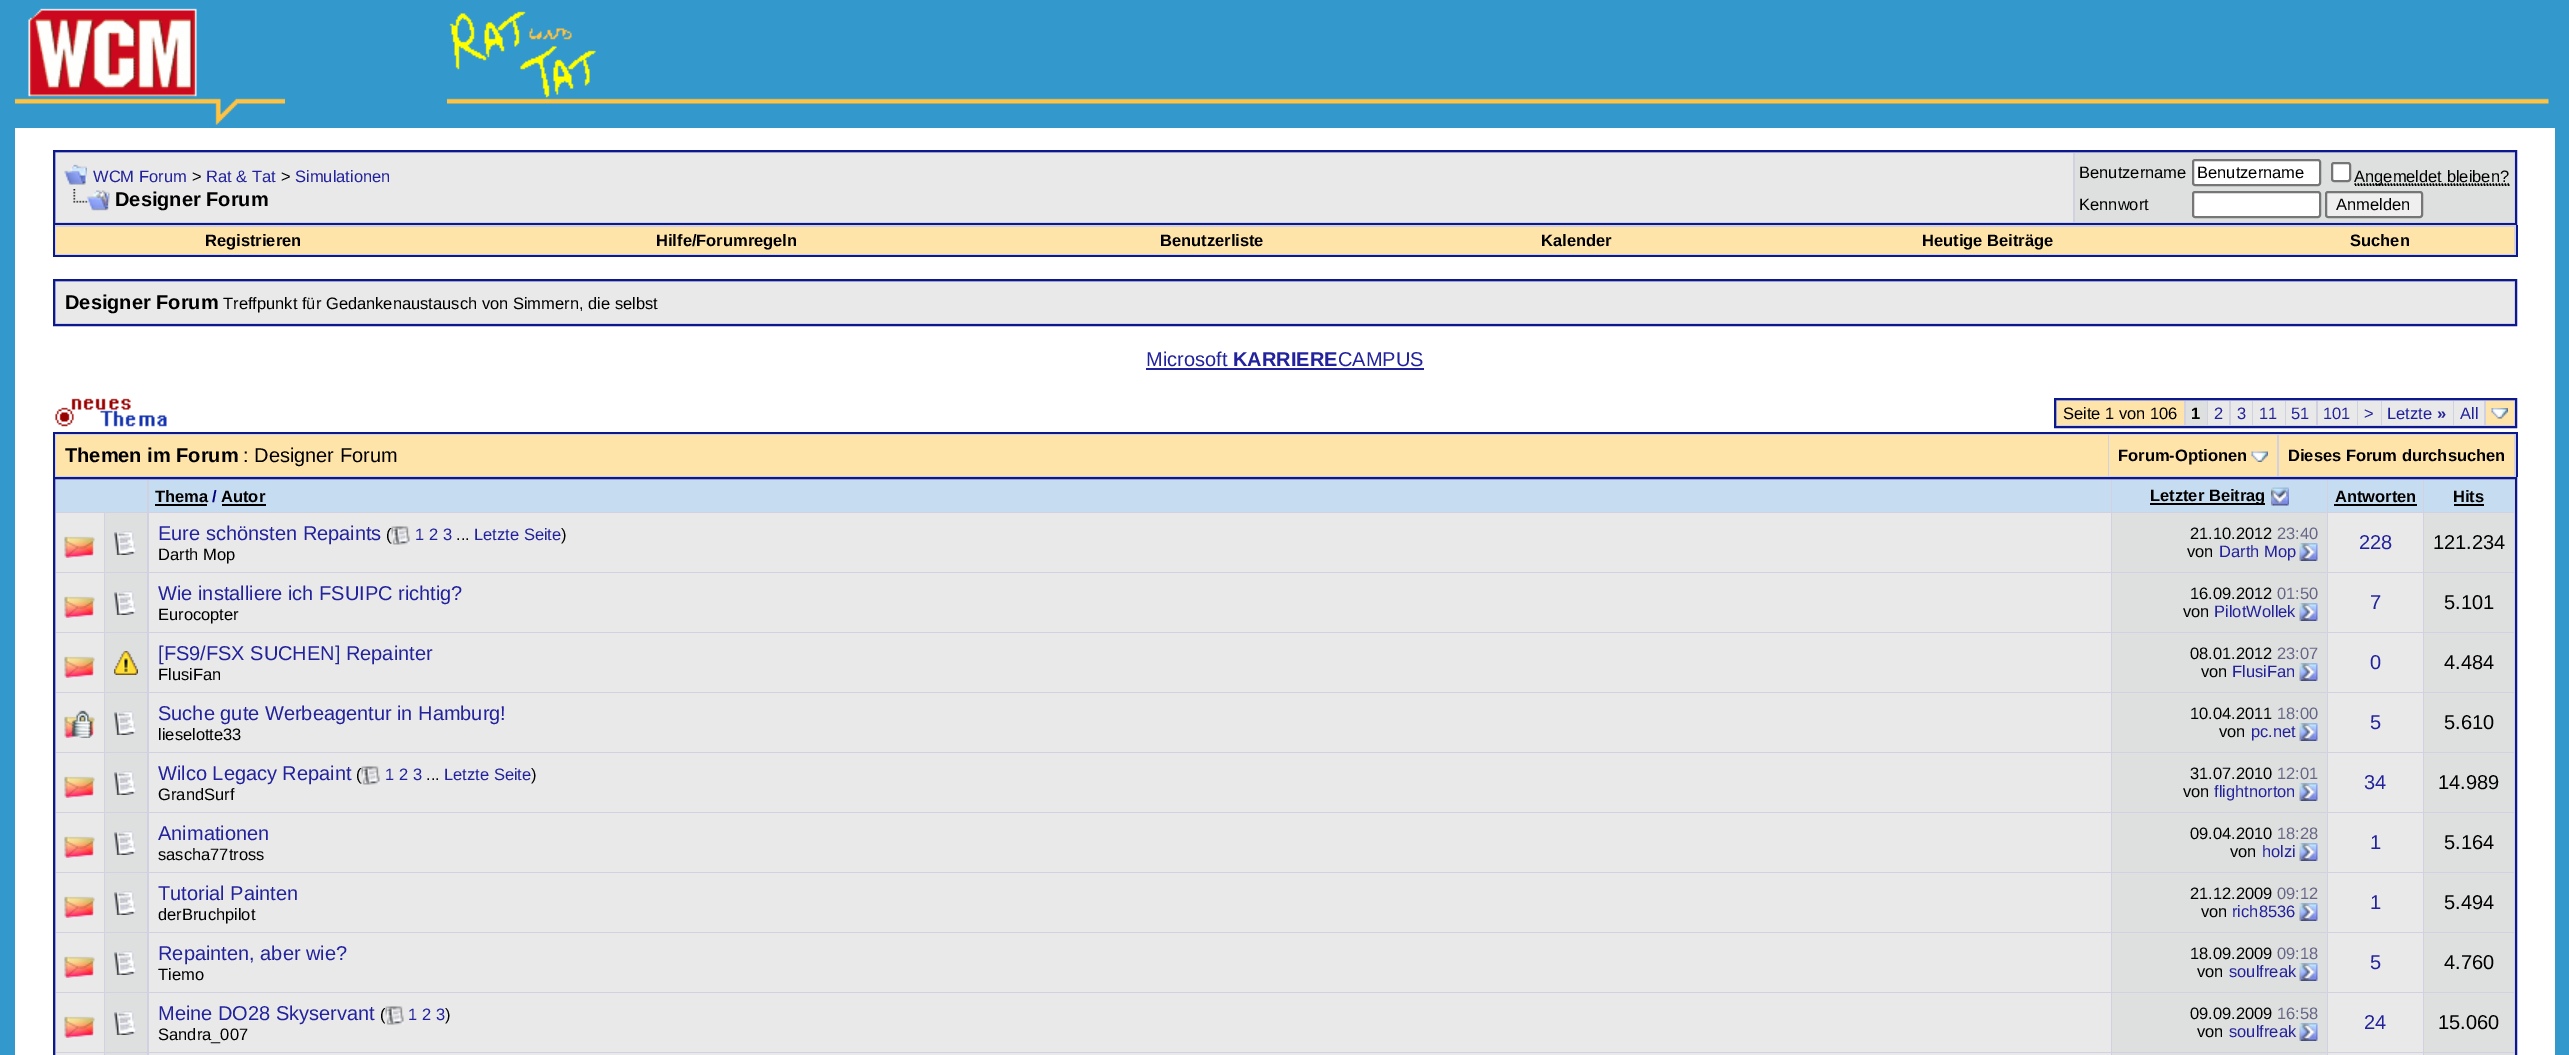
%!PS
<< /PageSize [2569 1055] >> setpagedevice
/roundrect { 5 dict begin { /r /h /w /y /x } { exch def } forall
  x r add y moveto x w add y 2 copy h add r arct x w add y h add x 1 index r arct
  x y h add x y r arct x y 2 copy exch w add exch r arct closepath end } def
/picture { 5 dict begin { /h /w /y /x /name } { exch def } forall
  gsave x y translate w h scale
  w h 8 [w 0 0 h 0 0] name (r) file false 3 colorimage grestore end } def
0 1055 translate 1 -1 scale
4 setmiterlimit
0.2 0.6 0.8 setrgbcolor
0 0 2569 1055 rectfill
(img1.rgb) 28 8 169 89 picture
(img2.rgb) 449 11 147 87 picture
(img3.rgb) 15 98 270 27 picture
(img4.rgb) 447 97 2102 7 picture
1 setgray
15 128 2540 927 rectfill
0.82 0.82 0.882 setrgbcolor
newpath 54 151 moveto 2516 151 lineto 2516 224 lineto 54 224 lineto closepath gsave fill grestore
0.043 0.098 0.549 setrgbcolor
2 setlinewidth
stroke
0.914 setgray
56 153 2017 69 rectfill
(img5.rgb) 64 164 23 21 picture
/LiberationSans-Regular [16.5 0 0 -16.5 0 0] selectfont
0.133 0.133 0.612 setrgbcolor
93 182 moveto (WCM Forum) show
0 setgray
192 182 moveto (>) show
0.133 0.133 0.612 setrgbcolor
206 182 moveto (Rat & Tat) show
0 setgray
281 182 moveto (>) show
0.133 0.133 0.612 setrgbcolor
295 182 moveto (Simulationen) show
(img6.rgb) 73 189 37 22 picture
/LiberationSans-Bold [20 0 0 -20 0 0] selectfont
0 setgray
115 206 moveto (Designer Forum) show
0.871 0.875 0.875 setrgbcolor
2075 153 439 69 rectfill
/LiberationSans-Regular [16.5 0 0 -16.5 0 0] selectfont
0 setgray
2079 178 moveto (Benutzername) show
1 setgray
2193 160 127 25 2 roundrect gsave fill grestore
0.463 setgray
stroke
0 setgray
2197 178 moveto (Benutzername) show
1 setgray
2332 163 18 18 2 roundrect gsave fill grestore
0.463 setgray
stroke
0 setgray
1.5 setlinewidth
[1.5 1.5] 0 setdash
newpath 2355 185 moveto 2509.5 185 lineto stroke
newpath 2354.5 184 moveto 2509.5 184 lineto stroke
2354 182 moveto (Angemeldet bleiben?) show
2079 210 moveto (Kennwort) show
1 setgray
2193 192 127 25 2 roundrect gsave fill grestore
0.463 setgray
2 setlinewidth
[] 0 setdash
stroke
0.937 setgray
2326 192 96 25 2 roundrect gsave fill grestore
0.463 setgray
stroke
0 setgray
2336 210 moveto (Anmelden) show
0.82 0.82 0.882 setrgbcolor
55 225 2461 30 rectfill
0.043 0.098 0.549 setrgbcolor
2516 225 2 32 rectfill
53 255 2464 2 rectfill
53 225 2 32 rectfill
1 0.894 0.667 setrgbcolor
56 227 2458 27 rectfill
/LiberationSans-Bold [16.5 0 0 -16.5 0 0] selectfont
0 setgray
205 246 moveto (Registrieren) show
656 246 moveto (Hilfe/Forumregeln) show
1160 246 moveto (Benutzerliste) show
1541 246 moveto (Kalender) show
1922 246 moveto (Heutige Beiträge) show
2350 246 moveto (Suchen) show
0.82 0.82 0.882 setrgbcolor
newpath 54 280 moveto 2516 280 lineto 2516 325 lineto 54 325 lineto closepath gsave fill grestore
0.043 0.098 0.549 setrgbcolor
stroke
0.914 setgray
56 282 2458 41 rectfill
/LiberationSans-Bold [20 0 0 -20 0 0] selectfont
0 setgray
65 309 moveto (Designer Forum) show
/LiberationSans-Regular [16.5 0 0 -16.5 0 0] selectfont
223 309 moveto (Treffpunkt für Gedankenaustausch von Simmern, die selbst) show
/LiberationSans-Regular [20 0 0 -20 0 0] selectfont
0.133 0.133 0.612 setrgbcolor
1146 366 moveto (Microsoft) show
/LiberationSans-Bold [20 0 0 -20 0 0] selectfont
1233 366 moveto (KARRIERE) show
/LiberationSans-Regular [20 0 0 -20 0 0] selectfont
1338 366 moveto (CAMPUS) show
1146 368 278 2 rectfill
(img7.rgb) 55 398 112 29 picture
0.82 0.82 0.882 setrgbcolor
newpath 2055 399 moveto 2516 399 lineto 2516 427 lineto 2055 427 lineto closepath gsave fill grestore
0.043 0.098 0.549 setrgbcolor
stroke
1 0.894 0.667 setrgbcolor
2057 401 127 24 rectfill
/LiberationSans-Regular [16.5 0 0 -16.5 0 0] selectfont
0 setgray
2063 419 moveto (Seite 1 von 106) show
0.871 0.875 0.875 setrgbcolor
2186 401 21 24 rectfill
/LiberationSans-Bold [16.5 0 0 -16.5 0 0] selectfont
0 setgray
2191 419 moveto (1) show
0.914 setgray
2208 401 21 24 rectfill
/LiberationSans-Regular [16.5 0 0 -16.5 0 0] selectfont
0.133 0.133 0.612 setrgbcolor
2214 419 moveto (2) show
0.914 setgray
2231 401 21 24 rectfill
0.133 0.133 0.612 setrgbcolor
2237 419 moveto (3) show
0.914 setgray
2253 401 32 24 rectfill
0.133 0.133 0.612 setrgbcolor
2259 419 moveto (11) show
0.914 setgray
2286 401 30 24 rectfill
0.133 0.133 0.612 setrgbcolor
2291 419 moveto (51) show
0.914 setgray
2318 401 39 24 rectfill
0.133 0.133 0.612 setrgbcolor
2323 419 moveto (101) show
0.914 setgray
2358 401 23 24 rectfill
0.133 0.133 0.612 setrgbcolor
2364 419 moveto (>) show
0.914 setgray
2382 401 71 24 rectfill
0.133 0.133 0.612 setrgbcolor
2387 419 moveto (Letzte) show
/LiberationSans-Bold [16.5 0 0 -16.5 0 0] selectfont
2437 419 moveto (») show
0.914 setgray
2454 401 30 24 rectfill
/LiberationSans-Regular [16.5 0 0 -16.5 0 0] selectfont
0.133 0.133 0.612 setrgbcolor
2460 419 moveto (All) show
1 0.894 0.667 setrgbcolor
2486 401 28 24 rectfill
(img8.rgb) 2491 408 17 11 picture
0.82 0.82 0.882 setrgbcolor
55 434 2461 43 rectfill
0.043 0.098 0.549 setrgbcolor
53 432 2464 2 rectfill
2516 432 2 45 rectfill
53 432 2 45 rectfill
1 0.894 0.667 setrgbcolor
56 435 2052 41 rectfill
/LiberationSans-Bold [20 0 0 -20 0 0] selectfont
0 setgray
65 462 moveto (Themen im Forum) show
/LiberationSans-Regular [20 0 0 -20 0 0] selectfont
243 462 moveto (: Designer Forum) show
1 0.894 0.667 setrgbcolor
2109 435 168 41 rectfill
/LiberationSans-Bold [16.5 0 0 -16.5 0 0] selectfont
0 setgray
2118 461 moveto (Forum-Optionen) show
(img9.rgb) 2251 451 17 11 picture
1 0.894 0.667 setrgbcolor
2279 435 235 41 rectfill
0 setgray
2288 461 moveto (Dieses Forum durchsuchen) show
0.82 0.82 0.882 setrgbcolor
newpath 54 478 moveto 2516 478 lineto 2516 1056 lineto 54 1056 lineto closepath gsave fill grestore
0.043 0.098 0.549 setrgbcolor
stroke
0.776 0.863 0.945 setrgbcolor
56 480 91 32 rectfill
149 480 1962 32 rectfill
0 setgray
155 502 moveto (Thema) show
155 504 52 2 rectfill
0 0 0.502 setrgbcolor
212 502 moveto (/) show
0 setgray
221 502 moveto (Autor) show
222 504 44 2 rectfill
0.776 0.863 0.945 setrgbcolor
2112 480 215 32 rectfill
0 setgray
2150 503 115 2 rectfill
2150 501 moveto (Letzter Beitrag) show
(img10.rgb) 2271 487 18 19 picture
0.776 0.863 0.945 setrgbcolor
2328 480 95 32 rectfill
0 setgray
2335 502 moveto (Antworten) show
2334 504 83 2 rectfill
0.776 0.863 0.945 setrgbcolor
2424 480 90 32 rectfill
0 setgray
2453 502 moveto (Hits) show
2454 504 30 2 rectfill
0.914 setgray
56 513 48 59 rectfill
(img11.rgb) 64 536 31 22 picture
0.871 0.875 0.875 setrgbcolor
105 513 42 59 rectfill
(img12.rgb) 114 531 23 24 picture
0.914 setgray
149 513 1962 59 rectfill
/LiberationSans-Regular [20 0 0 -20 0 0] selectfont
0.133 0.133 0.612 setrgbcolor
158 540 moveto (Eure schönsten Repaints) show
/LiberationSans-Regular [16.5 0 0 -16.5 0 0] selectfont
0 setgray
386 540 moveto (\() show
(img13.rgb) 391 526 19 19 picture
0.133 0.133 0.612 setrgbcolor
415 540 moveto (1 2 3) show
0 setgray
456 540 moveto (...) show
0.133 0.133 0.612 setrgbcolor
474 540 moveto (Letzte Seite) show
0 setgray
561 540 moveto (\)) show
158 560 moveto (Darth Mop) show
0.871 0.875 0.875 setrgbcolor
2112 513 215 59 rectfill
0 setgray
2190 539 moveto (21.10.2012) show
0.4 0.4 0.525 setrgbcolor
2277 539 moveto (23:40) show
0 setgray
2187 557 moveto (von) show
0.133 0.133 0.612 setrgbcolor
2219 557 moveto (Darth Mop) show
(img14.rgb) 2299 543 19 18 picture
0.914 setgray
2328 513 95 59 rectfill
/LiberationSans-Regular [20 0 0 -20 0 0] selectfont
0.133 0.133 0.612 setrgbcolor
2359 549 moveto (228) show
0.871 0.875 0.875 setrgbcolor
2424 513 90 59 rectfill
0 setgray
2433 549 moveto (121.234) show
0.914 setgray
56 573 48 59 rectfill
(img11.rgb) 64 596 31 22 picture
0.871 0.875 0.875 setrgbcolor
105 573 42 59 rectfill
(img12.rgb) 114 591 23 24 picture
0.914 setgray
149 573 1962 59 rectfill
0.133 0.133 0.612 setrgbcolor
158 600 moveto (Wie installiere ich FSUIPC richtig?) show
/LiberationSans-Regular [16.5 0 0 -16.5 0 0] selectfont
0 setgray
158 620 moveto (Eurocopter) show
0.871 0.875 0.875 setrgbcolor
2112 573 215 59 rectfill
0 setgray
2190 599 moveto (16.09.2012) show
0.4 0.4 0.525 setrgbcolor
2277 599 moveto (01:50) show
0 setgray
2183 617 moveto (von) show
0.133 0.133 0.612 setrgbcolor
2214 617 moveto (PilotWollek) show
(img14.rgb) 2299 603 19 18 picture
0.914 setgray
2328 573 95 59 rectfill
/LiberationSans-Regular [20 0 0 -20 0 0] selectfont
0.133 0.133 0.612 setrgbcolor
2370 609 moveto (7) show
0.871 0.875 0.875 setrgbcolor
2424 573 90 59 rectfill
0 setgray
2444 609 moveto (5.101) show
0.914 setgray
56 633 48 59 rectfill
(img11.rgb) 64 656 31 22 picture
0.871 0.875 0.875 setrgbcolor
105 633 42 59 rectfill
(img15.rgb) 114 651 24 24 picture
0.914 setgray
149 633 1962 59 rectfill
0.133 0.133 0.612 setrgbcolor
158 660 moveto ([FS9/FSX SUCHEN] Repainter) show
/LiberationSans-Regular [16.5 0 0 -16.5 0 0] selectfont
0 setgray
158 680 moveto (FlusiFan) show
0.871 0.875 0.875 setrgbcolor
2112 633 215 59 rectfill
0 setgray
2190 659 moveto (08.01.2012) show
0.4 0.4 0.525 setrgbcolor
2277 659 moveto (23:07) show
0 setgray
2201 677 moveto (von) show
0.133 0.133 0.612 setrgbcolor
2232 677 moveto (FlusiFan) show
(img14.rgb) 2299 663 19 18 picture
0.914 setgray
2328 633 95 59 rectfill
/LiberationSans-Regular [20 0 0 -20 0 0] selectfont
0.133 0.133 0.612 setrgbcolor
2370 669 moveto (0) show
0.871 0.875 0.875 setrgbcolor
2424 633 90 59 rectfill
0 setgray
2444 669 moveto (4.484) show
0.914 setgray
56 693 48 59 rectfill
(img16.rgb) 64 710 31 28 picture
0.871 0.875 0.875 setrgbcolor
105 693 42 59 rectfill
(img12.rgb) 114 711 23 24 picture
0.914 setgray
149 693 1962 59 rectfill
0.133 0.133 0.612 setrgbcolor
158 720 moveto (Suche gute Werbeagentur in Hamburg!) show
/LiberationSans-Regular [16.5 0 0 -16.5 0 0] selectfont
0 setgray
158 740 moveto (lieselotte33) show
0.871 0.875 0.875 setrgbcolor
2112 693 215 59 rectfill
0 setgray
2190 719 moveto (10.04.2011) show
0.4 0.4 0.525 setrgbcolor
2277 719 moveto (18:00) show
0 setgray
2219 737 moveto (von) show
0.133 0.133 0.612 setrgbcolor
2251 737 moveto (pc.net) show
(img14.rgb) 2299 723 19 18 picture
0.914 setgray
2328 693 95 59 rectfill
/LiberationSans-Regular [20 0 0 -20 0 0] selectfont
0.133 0.133 0.612 setrgbcolor
2370 729 moveto (5) show
0.871 0.875 0.875 setrgbcolor
2424 693 90 59 rectfill
0 setgray
2444 729 moveto (5.610) show
0.914 setgray
56 753 48 59 rectfill
(img11.rgb) 64 776 31 22 picture
0.871 0.875 0.875 setrgbcolor
105 753 42 59 rectfill
(img12.rgb) 114 771 23 24 picture
0.914 setgray
149 753 1962 59 rectfill
0.133 0.133 0.612 setrgbcolor
158 780 moveto (Wilco Legacy Repaint) show
/LiberationSans-Regular [16.5 0 0 -16.5 0 0] selectfont
0 setgray
356 780 moveto (\() show
(img17.rgb) 361 766 19 19 picture
0.133 0.133 0.612 setrgbcolor
385 780 moveto (1 2 3) show
0 setgray
426 780 moveto (...) show
0.133 0.133 0.612 setrgbcolor
444 780 moveto (Letzte Seite) show
0 setgray
531 780 moveto (\)) show
158 800 moveto (GrandSurf) show
0.871 0.875 0.875 setrgbcolor
2112 753 215 59 rectfill
0 setgray
2190 779 moveto (31.07.2010) show
0.4 0.4 0.525 setrgbcolor
2277 779 moveto (12:01) show
0 setgray
2183 797 moveto (von) show
0.133 0.133 0.612 setrgbcolor
2214 797 moveto (flightnorton) show
(img14.rgb) 2299 783 19 18 picture
0.914 setgray
2328 753 95 59 rectfill
/LiberationSans-Regular [20 0 0 -20 0 0] selectfont
0.133 0.133 0.612 setrgbcolor
2364 789 moveto (34) show
0.871 0.875 0.875 setrgbcolor
2424 753 90 59 rectfill
0 setgray
2438 789 moveto (14.989) show
0.914 setgray
56 813 48 59 rectfill
(img11.rgb) 64 836 31 22 picture
0.871 0.875 0.875 setrgbcolor
105 813 42 59 rectfill
(img12.rgb) 114 831 23 24 picture
0.914 setgray
149 813 1962 59 rectfill
0.133 0.133 0.612 setrgbcolor
158 840 moveto (Animationen) show
/LiberationSans-Regular [16.5 0 0 -16.5 0 0] selectfont
0 setgray
158 860 moveto (sascha77tross) show
0.871 0.875 0.875 setrgbcolor
2112 813 215 59 rectfill
0 setgray
2190 839 moveto (09.04.2010) show
0.4 0.4 0.525 setrgbcolor
2277 839 moveto (18:28) show
0 setgray
2230 857 moveto (von) show
0.133 0.133 0.612 setrgbcolor
2262 857 moveto (holzi) show
(img14.rgb) 2299 843 19 18 picture
0.914 setgray
2328 813 95 59 rectfill
/LiberationSans-Regular [20 0 0 -20 0 0] selectfont
0.133 0.133 0.612 setrgbcolor
2370 849 moveto (1) show
0.871 0.875 0.875 setrgbcolor
2424 813 90 59 rectfill
0 setgray
2444 849 moveto (5.164) show
0.914 setgray
56 873 48 59 rectfill
(img11.rgb) 64 896 31 22 picture
0.871 0.875 0.875 setrgbcolor
105 873 42 59 rectfill
(img12.rgb) 114 891 23 24 picture
0.914 setgray
149 873 1962 59 rectfill
0.133 0.133 0.612 setrgbcolor
158 900 moveto (Tutorial Painten) show
/LiberationSans-Regular [16.5 0 0 -16.5 0 0] selectfont
0 setgray
158 920 moveto (derBruchpilot) show
0.871 0.875 0.875 setrgbcolor
2112 873 215 59 rectfill
0 setgray
2190 899 moveto (21.12.2009) show
0.4 0.4 0.525 setrgbcolor
2277 899 moveto (09:12) show
0 setgray
2201 917 moveto (von) show
0.133 0.133 0.612 setrgbcolor
2232 917 moveto (rich8536) show
(img14.rgb) 2299 903 19 18 picture
0.914 setgray
2328 873 95 59 rectfill
/LiberationSans-Regular [20 0 0 -20 0 0] selectfont
0.133 0.133 0.612 setrgbcolor
2370 909 moveto (1) show
0.871 0.875 0.875 setrgbcolor
2424 873 90 59 rectfill
0 setgray
2444 909 moveto (5.494) show
0.914 setgray
56 933 48 59 rectfill
(img11.rgb) 64 956 31 22 picture
0.871 0.875 0.875 setrgbcolor
105 933 42 59 rectfill
(img12.rgb) 114 951 23 24 picture
0.914 setgray
149 933 1962 59 rectfill
0.133 0.133 0.612 setrgbcolor
158 960 moveto (Repainten, aber wie?) show
/LiberationSans-Regular [16.5 0 0 -16.5 0 0] selectfont
0 setgray
158 980 moveto (Tiemo) show
0.871 0.875 0.875 setrgbcolor
2112 933 215 59 rectfill
0 setgray
2190 959 moveto (18.09.2009) show
0.4 0.4 0.525 setrgbcolor
2277 959 moveto (09:18) show
0 setgray
2197 977 moveto (von) show
0.133 0.133 0.612 setrgbcolor
2229 977 moveto (soulfreak) show
(img14.rgb) 2299 963 19 18 picture
0.914 setgray
2328 933 95 59 rectfill
/LiberationSans-Regular [20 0 0 -20 0 0] selectfont
0.133 0.133 0.612 setrgbcolor
2370 969 moveto (5) show
0.871 0.875 0.875 setrgbcolor
2424 933 90 59 rectfill
0 setgray
2444 969 moveto (4.760) show
0.914 setgray
56 993 48 59 rectfill
(img11.rgb) 64 1016 31 22 picture
0.871 0.875 0.875 setrgbcolor
105 993 42 59 rectfill
(img12.rgb) 114 1011 23 24 picture
0.914 setgray
149 993 1962 59 rectfill
0.133 0.133 0.612 setrgbcolor
158 1020 moveto (Meine DO28 Skyservant) show
/LiberationSans-Regular [16.5 0 0 -16.5 0 0] selectfont
0 setgray
380 1020 moveto (\() show
(img18.rgb) 385 1006 19 19 picture
0.133 0.133 0.612 setrgbcolor
408 1020 moveto (1 2 3) show
0 setgray
445 1020 moveto (\)) show
158 1040 moveto (Sandra_007) show
0.871 0.875 0.875 setrgbcolor
2112 993 215 59 rectfill
0 setgray
2190 1019 moveto (09.09.2009) show
0.4 0.4 0.525 setrgbcolor
2277 1019 moveto (16:58) show
0 setgray
2197 1037 moveto (von) show
0.133 0.133 0.612 setrgbcolor
2229 1037 moveto (soulfreak) show
(img14.rgb) 2299 1023 19 18 picture
0.914 setgray
2328 993 95 59 rectfill
/LiberationSans-Regular [20 0 0 -20 0 0] selectfont
0.133 0.133 0.612 setrgbcolor
2364 1029 moveto (24) show
0.871 0.875 0.875 setrgbcolor
2424 993 90 59 rectfill
0 setgray
2438 1029 moveto (15.060) show
0.914 setgray
56 1053 48 2 rectfill
0.871 0.875 0.875 setrgbcolor
105 1053 42 2 rectfill
0.914 setgray
149 1053 1962 2 rectfill
0.871 0.875 0.875 setrgbcolor
2112 1053 215 2 rectfill
0.914 setgray
2328 1053 95 2 rectfill
0.871 0.875 0.875 setrgbcolor
2424 1053 90 2 rectfill
showpage
